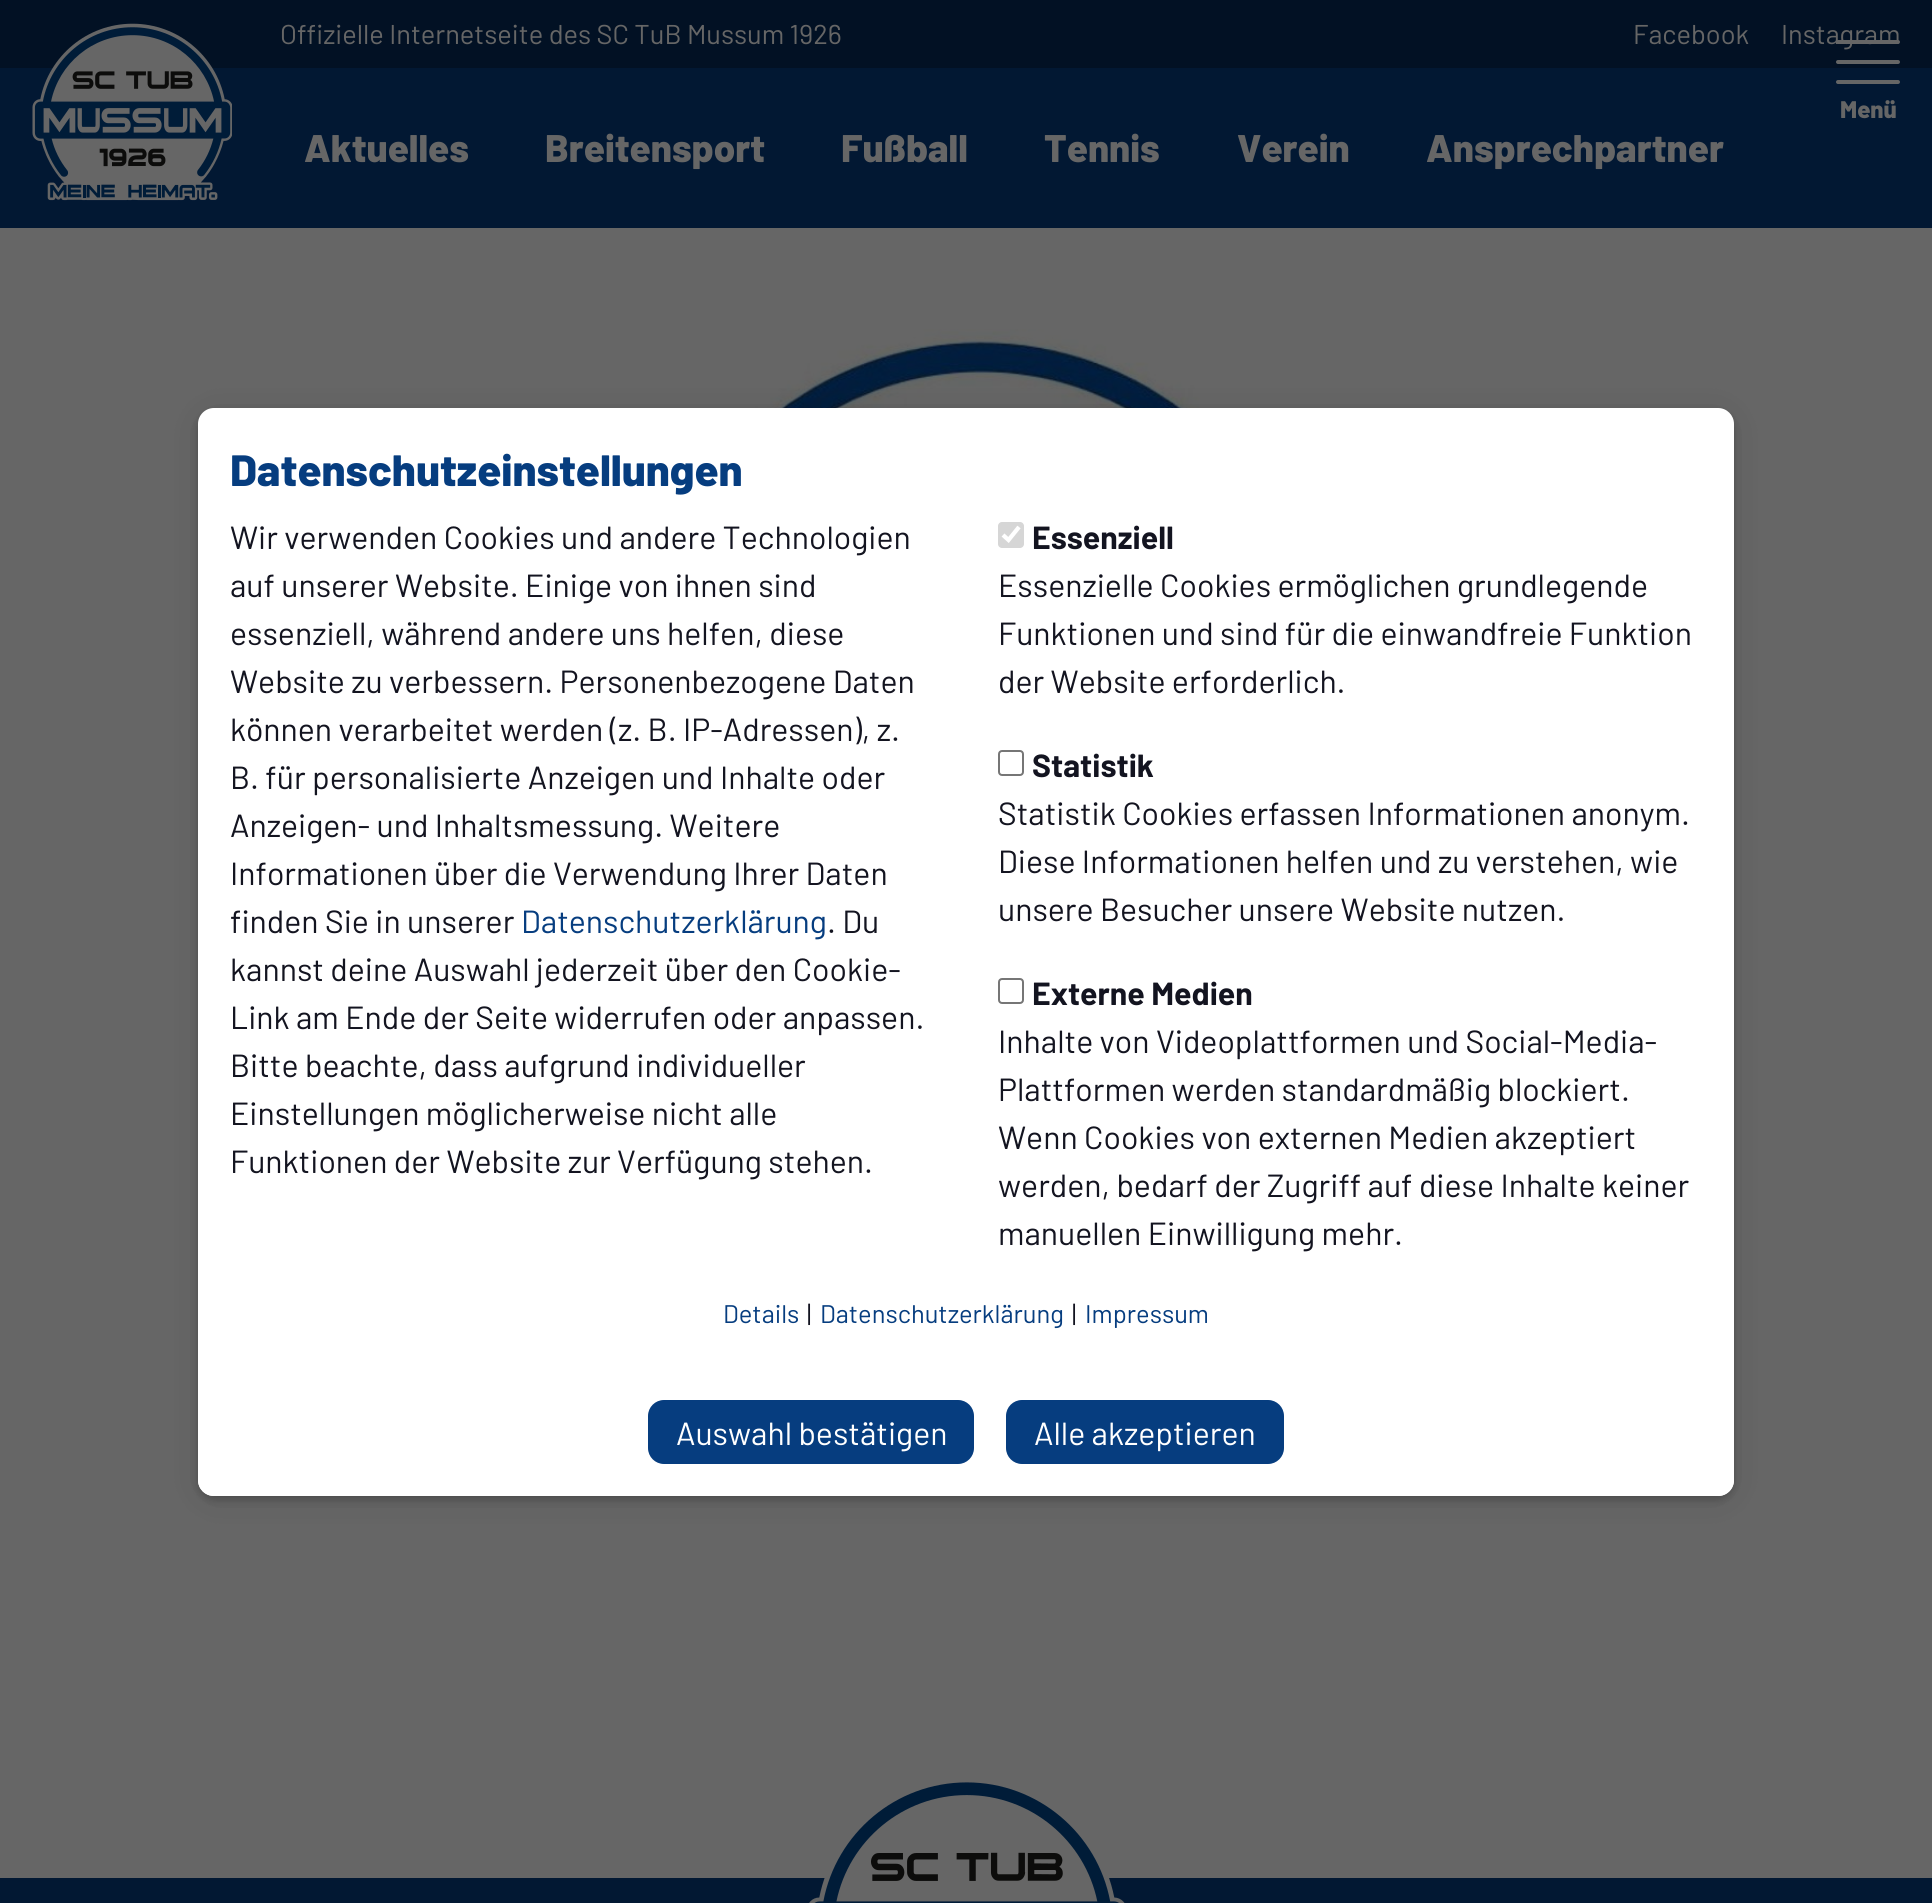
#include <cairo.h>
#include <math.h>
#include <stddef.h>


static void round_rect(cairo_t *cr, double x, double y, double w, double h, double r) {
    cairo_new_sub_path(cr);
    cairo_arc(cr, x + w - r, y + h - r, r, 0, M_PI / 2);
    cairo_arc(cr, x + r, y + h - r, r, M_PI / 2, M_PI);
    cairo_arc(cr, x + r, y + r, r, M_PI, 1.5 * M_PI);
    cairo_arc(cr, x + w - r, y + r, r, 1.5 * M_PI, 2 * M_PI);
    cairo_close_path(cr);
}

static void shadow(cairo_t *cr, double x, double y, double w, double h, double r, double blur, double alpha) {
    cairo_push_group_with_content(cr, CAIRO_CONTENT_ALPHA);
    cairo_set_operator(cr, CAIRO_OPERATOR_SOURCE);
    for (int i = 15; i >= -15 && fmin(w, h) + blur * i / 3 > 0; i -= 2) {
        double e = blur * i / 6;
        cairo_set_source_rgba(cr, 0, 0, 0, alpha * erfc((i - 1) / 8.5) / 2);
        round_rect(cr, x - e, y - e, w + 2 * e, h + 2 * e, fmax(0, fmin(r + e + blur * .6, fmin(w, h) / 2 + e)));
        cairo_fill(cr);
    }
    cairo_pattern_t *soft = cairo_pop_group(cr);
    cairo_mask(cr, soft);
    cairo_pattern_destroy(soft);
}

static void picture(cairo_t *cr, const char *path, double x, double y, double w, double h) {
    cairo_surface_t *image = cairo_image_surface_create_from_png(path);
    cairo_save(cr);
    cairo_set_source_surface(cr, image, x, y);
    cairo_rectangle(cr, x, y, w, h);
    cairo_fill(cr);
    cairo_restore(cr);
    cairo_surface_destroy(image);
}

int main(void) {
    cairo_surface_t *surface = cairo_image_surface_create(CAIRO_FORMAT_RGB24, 1932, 1903);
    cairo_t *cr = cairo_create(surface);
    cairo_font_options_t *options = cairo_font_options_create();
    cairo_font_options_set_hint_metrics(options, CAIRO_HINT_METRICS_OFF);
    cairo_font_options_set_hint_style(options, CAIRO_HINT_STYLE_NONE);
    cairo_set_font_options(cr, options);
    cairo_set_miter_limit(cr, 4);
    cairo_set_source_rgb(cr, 0.4, 0.4, 0.4);
    cairo_paint(cr);
    cairo_set_source_rgb(cr, 0.008, 0.067, 0.141);
    cairo_rectangle(cr, 0, 0, 1932, 68);
    cairo_fill(cr);
    cairo_select_font_face(cr, "Barlow", CAIRO_FONT_SLANT_NORMAL, CAIRO_FONT_WEIGHT_NORMAL);
    cairo_set_font_size(cr, 27.2);
    cairo_set_source_rgb(cr, 0.4, 0.4, 0.4);
    cairo_move_to(cr, 280, 44);
    cairo_show_text(cr, "Offizielle Internetseite des SC TuB Mussum 1926");
    cairo_move_to(cr, 1633, 44);
    cairo_show_text(cr, "Facebook");
    cairo_move_to(cr, 1781, 44);
    cairo_show_text(cr, "Instagram");
    cairo_set_source_rgb(cr, 0.008, 0.094, 0.2);
    cairo_rectangle(cr, 0, 68, 1932, 160);
    cairo_fill(cr);
    picture(cr, "img1.png", 32, 23, 200, 178);
    cairo_select_font_face(cr, "Barlow ExtraBold", CAIRO_FONT_SLANT_NORMAL, CAIRO_FONT_WEIGHT_NORMAL);
    cairo_set_font_size(cr, 38.5);
    cairo_set_source_rgb(cr, 0.4, 0.4, 0.4);
    cairo_move_to(cr, 304, 162);
    cairo_show_text(cr, "Aktuelles");
    cairo_move_to(cr, 545, 162);
    cairo_show_text(cr, "Breitensport");
    cairo_move_to(cr, 841, 162);
    cairo_show_text(cr, "Fußball");
    cairo_move_to(cr, 1044, 162);
    cairo_show_text(cr, "Tennis");
    cairo_move_to(cr, 1237, 162);
    cairo_show_text(cr, "Verein");
    cairo_move_to(cr, 1426, 162);
    cairo_show_text(cr, "Ansprechpartner");
    round_rect(cr, 1836, 60, 64, 4, 2);
    cairo_fill(cr);
    round_rect(cr, 1836, 40, 64, 4, 2);
    cairo_fill(cr);
    round_rect(cr, 1836, 80, 64, 4, 2);
    cairo_fill(cr);
    cairo_set_font_size(cr, 24);
    cairo_move_to(cr, 1840, 118);
    cairo_show_text(cr, "Menü");
    picture(cr, "img2.png", 609, 329, 744, 79);
    cairo_set_source_rgb(cr, 0.008, 0.094, 0.2);
    cairo_rectangle(cr, 0, 1878, 1932, 25);
    cairo_fill(cr);
    picture(cr, "img3.png", 809, 1782, 316, 121);
    cairo_set_source_rgb(cr, 0, 0, 0);
    shadow(cr, 198, 412, 1536, 1088, 16, 16, 0.1);
    shadow(cr, 198, 412, 1536, 1088, 16, 4, 0.2);
    cairo_set_source_rgb(cr, 1, 1, 1);
    round_rect(cr, 198, 408, 1536, 1088, 16);
    cairo_fill(cr);
    cairo_set_font_size(cr, 43.8);
    cairo_set_source_rgb(cr, 0.024, 0.239, 0.498);
    cairo_move_to(cr, 230, 486);
    cairo_show_text(cr, "Datenschutzeinstellungen");
    cairo_select_font_face(cr, "Barlow", CAIRO_FONT_SLANT_NORMAL, CAIRO_FONT_WEIGHT_NORMAL);
    cairo_set_font_size(cr, 32);
    cairo_set_source_rgb(cr, 0.078, 0.082, 0.125);
    cairo_move_to(cr, 230, 549);
    cairo_show_text(cr, "Wir verwenden Cookies und andere Technologien");
    cairo_move_to(cr, 230, 597);
    cairo_show_text(cr, "auf unserer Website. Einige von ihnen sind");
    cairo_move_to(cr, 230, 645);
    cairo_show_text(cr, "essenziell, während andere uns helfen, diese");
    cairo_move_to(cr, 230, 693);
    cairo_show_text(cr, "Website zu verbessern. Personenbezogene Daten");
    cairo_move_to(cr, 230, 741);
    cairo_show_text(cr, "können verarbeitet werden (z. B. IP-Adressen), z.");
    cairo_move_to(cr, 230, 789);
    cairo_show_text(cr, "B. für personalisierte Anzeigen und Inhalte oder");
    cairo_move_to(cr, 230, 837);
    cairo_show_text(cr, "Anzeigen- und Inhaltsmessung. Weitere");
    cairo_move_to(cr, 230, 885);
    cairo_show_text(cr, "Informationen über die Verwendung Ihrer Daten");
    cairo_move_to(cr, 230, 933);
    cairo_show_text(cr, "finden Sie in unserer");
    cairo_set_source_rgb(cr, 0.024, 0.239, 0.498);
    cairo_move_to(cr, 521, 933);
    cairo_show_text(cr, "Datenschutzerklärung");
    cairo_set_source_rgb(cr, 0.078, 0.082, 0.125);
    cairo_move_to(cr, 827, 933);
    cairo_show_text(cr, ". Du");
    cairo_move_to(cr, 230, 981);
    cairo_show_text(cr, "kannst deine Auswahl jederzeit über den Cookie-");
    cairo_move_to(cr, 230, 1029);
    cairo_show_text(cr, "Link am Ende der Seite widerrufen oder anpassen.");
    cairo_move_to(cr, 230, 1077);
    cairo_show_text(cr, "Bitte beachte, dass aufgrund individueller");
    cairo_move_to(cr, 230, 1125);
    cairo_show_text(cr, "Einstellungen möglicherweise nicht alle");
    cairo_move_to(cr, 230, 1173);
    cairo_show_text(cr, "Funktionen der Website zur Verfügung stehen.");
    cairo_set_source_rgb(cr, 0.839, 0.839, 0.839);
    round_rect(cr, 998, 522, 26, 26, 4);
    cairo_fill(cr);
    cairo_new_path(cr);
    cairo_move_to(cr, 1003, 535);
    cairo_line_to(cr, 1008.5, 540);
    cairo_line_to(cr, 1019, 527);
    cairo_set_source_rgb(cr, 1, 1, 1);
    cairo_set_line_width(cr, 4.2);
    cairo_stroke(cr);
    cairo_select_font_face(cr, "Barlow", CAIRO_FONT_SLANT_NORMAL, CAIRO_FONT_WEIGHT_BOLD);
    cairo_set_source_rgb(cr, 0.078, 0.082, 0.125);
    cairo_move_to(cr, 1032, 549);
    cairo_show_text(cr, "Essenziell");
    cairo_select_font_face(cr, "Barlow", CAIRO_FONT_SLANT_NORMAL, CAIRO_FONT_WEIGHT_NORMAL);
    cairo_move_to(cr, 998, 597);
    cairo_show_text(cr, "Essenzielle Cookies ermöglichen grundlegende");
    cairo_move_to(cr, 998, 645);
    cairo_show_text(cr, "Funktionen und sind für die einwandfreie Funktion");
    cairo_move_to(cr, 998, 693);
    cairo_show_text(cr, "der Website erforderlich.");
    round_rect(cr, 999, 751, 24, 24, 3);
    cairo_set_source_rgb(cr, 0.463, 0.463, 0.463);
    cairo_set_line_width(cr, 2);
    cairo_stroke(cr);
    cairo_select_font_face(cr, "Barlow", CAIRO_FONT_SLANT_NORMAL, CAIRO_FONT_WEIGHT_BOLD);
    cairo_set_source_rgb(cr, 0.078, 0.082, 0.125);
    cairo_move_to(cr, 1032, 777);
    cairo_show_text(cr, "Statistik");
    cairo_select_font_face(cr, "Barlow", CAIRO_FONT_SLANT_NORMAL, CAIRO_FONT_WEIGHT_NORMAL);
    cairo_move_to(cr, 998, 825);
    cairo_show_text(cr, "Statistik Cookies erfassen Informationen anonym.");
    cairo_move_to(cr, 998, 873);
    cairo_show_text(cr, "Diese Informationen helfen und zu verstehen, wie");
    cairo_move_to(cr, 998, 921);
    cairo_show_text(cr, "unsere Besucher unsere Website nutzen.");
    round_rect(cr, 999, 979, 24, 24, 3);
    cairo_set_source_rgb(cr, 0.463, 0.463, 0.463);
    cairo_stroke(cr);
    cairo_select_font_face(cr, "Barlow", CAIRO_FONT_SLANT_NORMAL, CAIRO_FONT_WEIGHT_BOLD);
    cairo_set_source_rgb(cr, 0.078, 0.082, 0.125);
    cairo_move_to(cr, 1032, 1005);
    cairo_show_text(cr, "Externe Medien");
    cairo_select_font_face(cr, "Barlow", CAIRO_FONT_SLANT_NORMAL, CAIRO_FONT_WEIGHT_NORMAL);
    cairo_move_to(cr, 998, 1053);
    cairo_show_text(cr, "Inhalte von Videoplattformen und Social-Media-");
    cairo_move_to(cr, 998, 1101);
    cairo_show_text(cr, "Plattformen werden standardmäßig blockiert.");
    cairo_move_to(cr, 998, 1149);
    cairo_show_text(cr, "Wenn Cookies von externen Medien akzeptiert");
    cairo_move_to(cr, 998, 1197);
    cairo_show_text(cr, "werden, bedarf der Zugriff auf diese Inhalte keiner");
    cairo_move_to(cr, 998, 1245);
    cairo_show_text(cr, "manuellen Einwilligung mehr.");
    cairo_set_font_size(cr, 25.5);
    cairo_set_source_rgb(cr, 0.024, 0.239, 0.498);
    cairo_move_to(cr, 723, 1323);
    cairo_show_text(cr, "Details");
    cairo_set_source_rgb(cr, 0.078, 0.082, 0.125);
    cairo_move_to(cr, 807, 1323);
    cairo_show_text(cr, "|");
    cairo_set_source_rgb(cr, 0.024, 0.239, 0.498);
    cairo_move_to(cr, 820, 1323);
    cairo_show_text(cr, "Datenschutzerklärung");
    cairo_set_source_rgb(cr, 0.078, 0.082, 0.125);
    cairo_move_to(cr, 1072, 1323);
    cairo_show_text(cr, "|");
    cairo_set_source_rgb(cr, 0.024, 0.239, 0.498);
    cairo_move_to(cr, 1085, 1323);
    cairo_show_text(cr, "Impressum");
    cairo_set_source_rgb(cr, 1, 1, 1);
    cairo_new_path(cr);
    cairo_move_to(cr, 198, 1368);
    cairo_line_to(cr, 1734, 1368);
    cairo_line_to(cr, 1734, 1480);
    cairo_curve_to(cr, 1734, 1489, 1727, 1496, 1718, 1496);
    cairo_line_to(cr, 214, 1496);
    cairo_curve_to(cr, 205, 1496, 198, 1489, 198, 1480);
    cairo_close_path(cr);
    cairo_fill(cr);
    cairo_set_source_rgb(cr, 0.024, 0.239, 0.498);
    round_rect(cr, 649, 1401, 324, 62, 15);
    cairo_fill_preserve(cr);
    cairo_stroke(cr);
    cairo_set_font_size(cr, 32);
    cairo_set_source_rgb(cr, 1, 1, 1);
    cairo_move_to(cr, 676, 1445);
    cairo_show_text(cr, "Auswahl bestätigen");
    cairo_set_source_rgb(cr, 0.024, 0.239, 0.498);
    round_rect(cr, 1007, 1401, 276, 62, 15);
    cairo_fill_preserve(cr);
    cairo_stroke(cr);
    cairo_set_source_rgb(cr, 1, 1, 1);
    cairo_move_to(cr, 1034, 1445);
    cairo_show_text(cr, "Alle akzeptieren");
    cairo_surface_write_to_png(surface, "page.png");
    cairo_font_options_destroy(options);
    cairo_destroy(cr);
    cairo_surface_destroy(surface);
    return 0;
}
